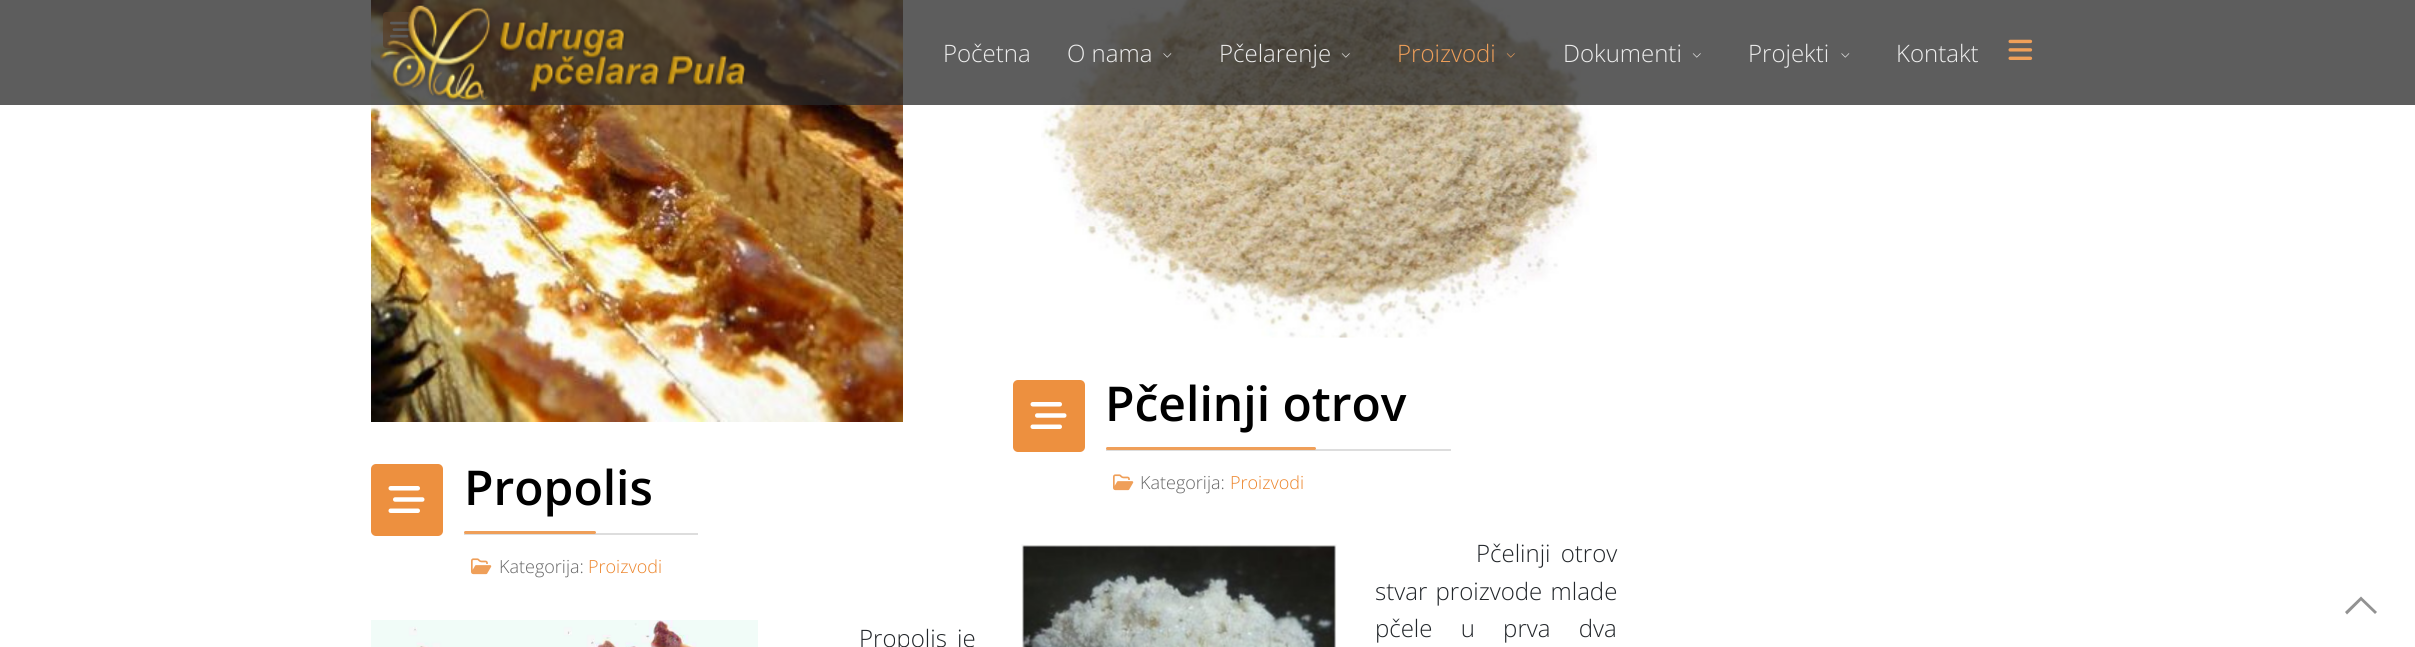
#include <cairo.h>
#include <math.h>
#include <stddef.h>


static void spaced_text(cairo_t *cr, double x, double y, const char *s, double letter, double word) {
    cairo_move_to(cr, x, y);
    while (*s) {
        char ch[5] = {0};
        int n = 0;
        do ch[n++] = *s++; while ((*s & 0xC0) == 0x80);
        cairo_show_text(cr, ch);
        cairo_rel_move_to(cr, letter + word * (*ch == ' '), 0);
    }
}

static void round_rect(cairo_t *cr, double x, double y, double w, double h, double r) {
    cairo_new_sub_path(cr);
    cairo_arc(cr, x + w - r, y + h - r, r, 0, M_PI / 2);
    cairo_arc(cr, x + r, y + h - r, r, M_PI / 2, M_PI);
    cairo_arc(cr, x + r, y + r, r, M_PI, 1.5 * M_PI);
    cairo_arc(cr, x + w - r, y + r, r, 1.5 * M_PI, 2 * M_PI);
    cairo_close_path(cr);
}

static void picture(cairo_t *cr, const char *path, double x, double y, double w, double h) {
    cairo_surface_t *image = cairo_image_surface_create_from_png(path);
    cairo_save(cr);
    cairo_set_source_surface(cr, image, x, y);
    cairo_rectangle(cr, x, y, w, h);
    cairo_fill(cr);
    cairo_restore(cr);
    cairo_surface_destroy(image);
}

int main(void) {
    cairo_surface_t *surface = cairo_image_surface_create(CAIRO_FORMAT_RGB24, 2415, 647);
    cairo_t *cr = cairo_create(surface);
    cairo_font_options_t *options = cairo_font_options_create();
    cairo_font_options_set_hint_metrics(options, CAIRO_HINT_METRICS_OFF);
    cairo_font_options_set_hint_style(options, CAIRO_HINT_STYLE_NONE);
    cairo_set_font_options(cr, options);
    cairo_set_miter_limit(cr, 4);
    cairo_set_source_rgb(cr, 1, 1, 1);
    cairo_paint(cr);
    picture(cr, "img8.png", 371, 0, 532, 422);
    cairo_set_source_rgba(cr, 0.922, 0.518, 0.165, 0.7);
    round_rect(cr, 383, 12, 36, 36, 3);
    cairo_fill(cr);
    picture(cr, "img9.png", 390, 21, 20, 17);
    picture(cr, "img13.png", 1041, 0, 556, 338);
    cairo_set_source_rgba(cr, 0.153, 0.153, 0.153, 0.75);
    cairo_rectangle(cr, 0, 0, 2415, 105);
    cairo_fill(cr);
    picture(cr, "img1.png", 380, 4, 366, 98);
    cairo_select_font_face(cr, "Open Sans Light", CAIRO_FONT_SLANT_NORMAL, CAIRO_FONT_WEIGHT_NORMAL);
    cairo_set_font_size(cr, 24);
    cairo_set_source_rgb(cr, 0.929, 0.929, 0.929);
    cairo_move_to(cr, 943, 62);
    cairo_show_text(cr, "Početna");
    cairo_move_to(cr, 1067, 62);
    cairo_show_text(cr, "O nama");
    picture(cr, "img2.png", 1163, 53, 9, 5);
    cairo_move_to(cr, 1219, 62);
    cairo_show_text(cr, "Pčelarenje");
    picture(cr, "img3.png", 1341, 53, 9, 5);
    cairo_set_source_rgb(cr, 0.937, 0.624, 0.349);
    cairo_move_to(cr, 1397, 62);
    cairo_show_text(cr, "Proizvodi");
    picture(cr, "img4.png", 1506, 53, 9, 5);
    cairo_set_source_rgb(cr, 0.929, 0.929, 0.929);
    cairo_move_to(cr, 1563, 62);
    cairo_show_text(cr, "Dokumenti");
    picture(cr, "img5.png", 1692, 53, 9, 5);
    cairo_move_to(cr, 1748, 62);
    cairo_show_text(cr, "Projekti");
    picture(cr, "img6.png", 1841, 53, 9, 5);
    cairo_move_to(cr, 1896, 62);
    cairo_show_text(cr, "Kontakt");
    picture(cr, "img7.png", 2008, 39, 25, 21);
    cairo_set_source_rgb(cr, 0.929, 0.565, 0.247);
    round_rect(cr, 371, 464, 72, 72, 5);
    cairo_fill(cr);
    picture(cr, "img10.png", 388, 486, 37, 27);
    cairo_set_source_rgb(cr, 0.867, 0.867, 0.867);
    cairo_rectangle(cr, 464, 533, 234, 2);
    cairo_fill(cr);
    cairo_select_font_face(cr, "Open Sans SemiBold", CAIRO_FONT_SLANT_NORMAL, CAIRO_FONT_WEIGHT_NORMAL);
    cairo_set_font_size(cr, 48);
    cairo_set_source_rgb(cr, 0, 0, 0);
    cairo_move_to(cr, 464, 505);
    cairo_show_text(cr, "Propolis");
    cairo_set_source_rgb(cr, 0.937, 0.624, 0.349);
    round_rect(cr, 464, 531, 132, 3, 1.5);
    cairo_fill(cr);
    picture(cr, "img11.png", 471, 558, 21, 17);
    cairo_select_font_face(cr, "Open Sans Light", CAIRO_FONT_SLANT_NORMAL, CAIRO_FONT_WEIGHT_NORMAL);
    cairo_set_font_size(cr, 18);
    cairo_set_source_rgb(cr, 0.4, 0.4, 0.4);
    cairo_move_to(cr, 499, 573);
    cairo_show_text(cr, "Kategorija:");
    cairo_set_source_rgb(cr, 0.922, 0.518, 0.165);
    cairo_move_to(cr, 588, 573);
    cairo_show_text(cr, "Proizvodi");
    picture(cr, "img12.png", 371, 620, 387, 27);
    cairo_set_font_size(cr, 24);
    cairo_set_source_rgb(cr, 0.129, 0.145, 0.161);
    spaced_text(cr, 859, 647, "Propolis je", 0, 4);
    cairo_set_source_rgb(cr, 0.929, 0.565, 0.247);
    round_rect(cr, 1013, 380, 72, 72, 5);
    cairo_fill(cr);
    picture(cr, "img10.png", 1030, 402, 37, 27);
    cairo_set_source_rgb(cr, 0.867, 0.867, 0.867);
    cairo_rectangle(cr, 1106, 449, 345, 2);
    cairo_fill(cr);
    cairo_select_font_face(cr, "Open Sans SemiBold", CAIRO_FONT_SLANT_NORMAL, CAIRO_FONT_WEIGHT_NORMAL);
    cairo_set_font_size(cr, 48);
    cairo_set_source_rgb(cr, 0, 0, 0);
    cairo_move_to(cr, 1105, 421);
    cairo_show_text(cr, "Pčelinji otrov");
    cairo_set_source_rgb(cr, 0.937, 0.624, 0.349);
    round_rect(cr, 1106, 447, 210, 3, 1.5);
    cairo_fill(cr);
    picture(cr, "img11.png", 1113, 474, 21, 17);
    cairo_select_font_face(cr, "Open Sans Light", CAIRO_FONT_SLANT_NORMAL, CAIRO_FONT_WEIGHT_NORMAL);
    cairo_set_font_size(cr, 18);
    cairo_set_source_rgb(cr, 0.4, 0.4, 0.4);
    cairo_move_to(cr, 1140, 489);
    cairo_show_text(cr, "Kategorija:");
    cairo_set_source_rgb(cr, 0.922, 0.518, 0.165);
    cairo_move_to(cr, 1230, 489);
    cairo_show_text(cr, "Proizvodi");
    picture(cr, "img14.png", 1021, 544, 316, 103);
    cairo_set_font_size(cr, 24);
    cairo_set_source_rgb(cr, 0.129, 0.145, 0.161);
    spaced_text(cr, 1476, 562, "Pčelinji otrov", 0, 4);
    spaced_text(cr, 1375, 600, "stvar proizvode mlade", 0, 2);
    spaced_text(cr, 1375, 637, "pčele u prva dva", 0, 22);
    cairo_set_source_rgb(cr, 0.573, 0.573, 0.573);
    cairo_new_path(cr);
    cairo_move_to(cr, 2363, 598.5);
    cairo_line_to(cr, 2361, 596.5);
    cairo_line_to(cr, 2345, 612);
    cairo_line_to(cr, 2347, 614.5);
    cairo_line_to(cr, 2361, 600.5);
    cairo_line_to(cr, 2375, 614);
    cairo_line_to(cr, 2377, 612);
    cairo_close_path(cr);
    cairo_fill(cr);
    cairo_surface_write_to_png(surface, "page.png");
    cairo_font_options_destroy(options);
    cairo_destroy(cr);
    cairo_surface_destroy(surface);
    return 0;
}
